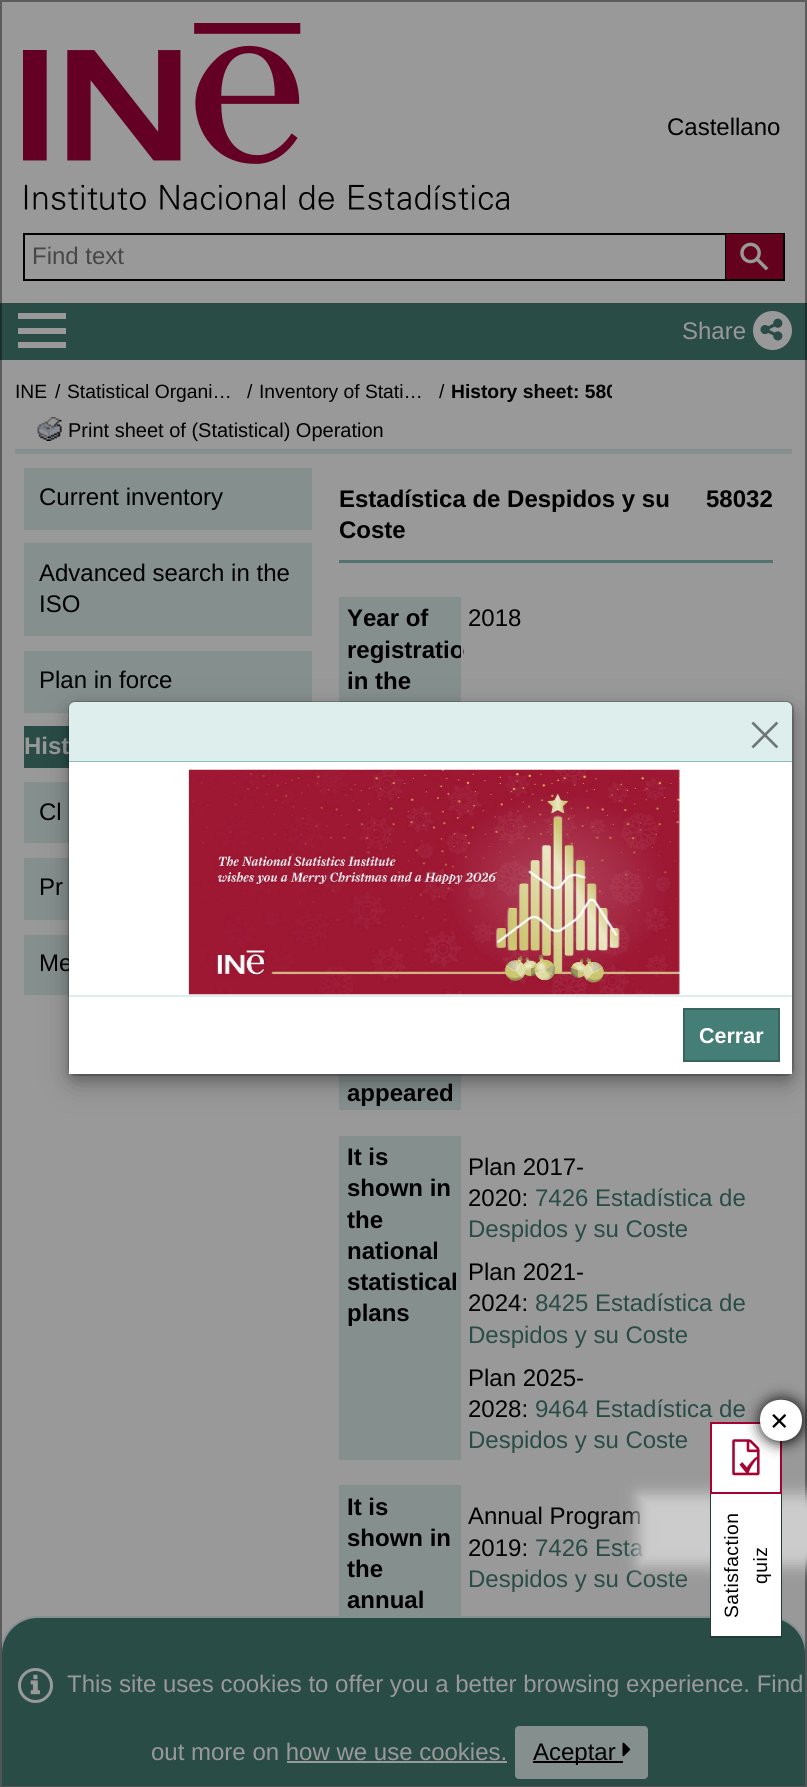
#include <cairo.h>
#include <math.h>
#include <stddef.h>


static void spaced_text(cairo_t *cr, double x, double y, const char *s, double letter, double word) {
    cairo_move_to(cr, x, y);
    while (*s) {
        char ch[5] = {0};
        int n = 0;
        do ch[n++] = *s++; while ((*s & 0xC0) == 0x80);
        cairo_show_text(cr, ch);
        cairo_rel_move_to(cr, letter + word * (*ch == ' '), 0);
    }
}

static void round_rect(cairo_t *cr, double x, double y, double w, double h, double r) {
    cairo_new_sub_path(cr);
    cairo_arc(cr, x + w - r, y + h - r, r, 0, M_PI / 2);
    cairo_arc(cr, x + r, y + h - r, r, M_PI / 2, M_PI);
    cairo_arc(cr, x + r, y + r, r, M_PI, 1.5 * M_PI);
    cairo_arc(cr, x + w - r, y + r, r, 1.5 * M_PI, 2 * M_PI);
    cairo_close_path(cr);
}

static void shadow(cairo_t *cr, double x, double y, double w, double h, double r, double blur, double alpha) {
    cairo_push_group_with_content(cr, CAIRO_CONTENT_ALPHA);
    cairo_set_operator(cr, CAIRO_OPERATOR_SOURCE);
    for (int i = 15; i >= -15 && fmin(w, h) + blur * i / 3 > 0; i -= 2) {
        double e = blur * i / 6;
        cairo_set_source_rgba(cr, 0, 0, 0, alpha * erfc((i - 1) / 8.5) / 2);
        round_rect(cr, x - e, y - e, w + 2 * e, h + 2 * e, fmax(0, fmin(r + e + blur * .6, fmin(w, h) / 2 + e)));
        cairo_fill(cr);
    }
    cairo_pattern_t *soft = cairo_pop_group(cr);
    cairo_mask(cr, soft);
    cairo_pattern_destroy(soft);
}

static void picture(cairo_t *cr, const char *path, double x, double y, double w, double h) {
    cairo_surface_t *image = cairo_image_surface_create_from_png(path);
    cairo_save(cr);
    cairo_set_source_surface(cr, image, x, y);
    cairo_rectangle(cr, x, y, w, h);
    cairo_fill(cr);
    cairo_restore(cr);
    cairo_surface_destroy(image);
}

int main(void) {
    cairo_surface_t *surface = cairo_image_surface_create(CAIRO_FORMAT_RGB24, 807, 1787);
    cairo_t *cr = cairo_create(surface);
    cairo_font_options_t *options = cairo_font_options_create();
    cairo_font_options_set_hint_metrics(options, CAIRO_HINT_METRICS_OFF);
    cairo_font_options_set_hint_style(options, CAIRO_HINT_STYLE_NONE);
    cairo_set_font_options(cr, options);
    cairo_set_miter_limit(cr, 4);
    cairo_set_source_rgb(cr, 0.6, 0.6, 0.6);
    cairo_paint(cr);
    picture(cr, "img1.png", 23, 23, 487, 187);
    cairo_select_font_face(cr, "Liberation Sans", CAIRO_FONT_SLANT_NORMAL, CAIRO_FONT_WEIGHT_NORMAL);
    cairo_set_font_size(cr, 24);
    cairo_set_source_rgb(cr, 0, 0, 0);
    cairo_move_to(cr, 667, 135);
    cairo_show_text(cr, "Castellano");
    cairo_rectangle(cr, 24, 234, 707, 46);
    cairo_stroke(cr);
    cairo_set_source_rgb(cr, 0.278, 0.278, 0.278);
    cairo_move_to(cr, 32, 264);
    cairo_show_text(cr, "Find text");
    cairo_rectangle(cr, 726, 234, 58, 46);
    cairo_set_source_rgb(cr, 0, 0, 0);
    cairo_stroke(cr);
    cairo_set_source_rgb(cr, 0.392, 0.008, 0.118);
    cairo_rectangle(cr, 726, 234, 57, 45);
    cairo_fill(cr);
    picture(cr, "img2.png", 740, 242, 29, 29);
    cairo_set_source_rgb(cr, 0.161, 0.298, 0.278);
    cairo_rectangle(cr, 0, 303, 807, 57);
    cairo_fill(cr);
    cairo_set_source_rgb(cr, 0.6, 0.6, 0.6);
    cairo_new_path(cr);
    cairo_move_to(cr, 66, 318);
    cairo_line_to(cr, 66, 313);
    cairo_line_to(cr, 18, 313);
    cairo_line_to(cr, 18, 319);
    cairo_line_to(cr, 66, 319);
    cairo_close_path(cr);
    cairo_move_to(cr, 66, 333);
    cairo_line_to(cr, 66, 328);
    cairo_line_to(cr, 18, 328);
    cairo_line_to(cr, 18, 334);
    cairo_line_to(cr, 66, 334);
    cairo_close_path(cr);
    cairo_move_to(cr, 66, 347);
    cairo_line_to(cr, 66, 342);
    cairo_line_to(cr, 18, 342);
    cairo_line_to(cr, 18, 348);
    cairo_line_to(cr, 66, 348);
    cairo_close_path(cr);
    cairo_fill(cr);
    cairo_move_to(cr, 682, 339);
    cairo_show_text(cr, "Share");
    cairo_new_path(cr);
    cairo_arc(cr, 772.5, 330.5, 19.5, 0, 2 * M_PI);
    cairo_fill(cr);
    picture(cr, "img3.png", 760, 318, 23, 23);
    cairo_set_source_rgb(cr, 0.522, 0.561, 0.557);
    cairo_rectangle(cr, 15, 449, 777, 5);
    cairo_fill(cr);
    cairo_set_font_size(cr, 19.25);
    cairo_set_source_rgb(cr, 0, 0, 0);
    cairo_move_to(cr, 15, 398);
    cairo_show_text(cr, "INE");
    cairo_move_to(cr, 55, 398);
    cairo_show_text(cr, "/");
    cairo_move_to(cr, 67, 398);
    cairo_show_text(cr, "Statistical Organi…");
    cairo_move_to(cr, 247, 398);
    cairo_show_text(cr, "/");
    cairo_move_to(cr, 259, 398);
    cairo_show_text(cr, "Inventory of Stati…");
    cairo_move_to(cr, 439, 398);
    cairo_show_text(cr, "/");
    cairo_save(cr);
    cairo_rectangle(cr, 431, 380, 181, 25);
    cairo_clip(cr);
    cairo_select_font_face(cr, "Liberation Sans", CAIRO_FONT_SLANT_NORMAL, CAIRO_FONT_WEIGHT_BOLD);
    cairo_move_to(cr, 451, 398);
    cairo_show_text(cr, "History sheet: 580");
    cairo_restore(cr);
    picture(cr, "img4.png", 37, 417, 25, 24);
    cairo_set_font_size(cr, 20);
    cairo_move_to(cr, 68, 437);
    cairo_show_text(cr, "Print sheet of (Statistical) Operation");
    cairo_set_source_rgb(cr, 0.522, 0.561, 0.557);
    cairo_rectangle(cr, 24, 468, 288, 62);
    cairo_fill(cr);
    cairo_set_font_size(cr, 24);
    cairo_set_source_rgb(cr, 0, 0, 0);
    cairo_move_to(cr, 39, 505);
    cairo_show_text(cr, "Current inventory");
    cairo_set_source_rgb(cr, 0.522, 0.561, 0.557);
    cairo_rectangle(cr, 24, 543, 288, 93);
    cairo_fill(cr);
    cairo_set_source_rgb(cr, 0, 0, 0);
    cairo_move_to(cr, 39, 581);
    cairo_show_text(cr, "Advanced search in the");
    cairo_move_to(cr, 39, 612);
    cairo_show_text(cr, "ISO");
    cairo_set_source_rgb(cr, 0.522, 0.561, 0.557);
    cairo_rectangle(cr, 24, 651, 288, 62);
    cairo_fill(cr);
    cairo_set_source_rgb(cr, 0, 0, 0);
    cairo_move_to(cr, 39, 688);
    cairo_show_text(cr, "Plan in force");
    cairo_set_source_rgb(cr, 0.161, 0.298, 0.278);
    cairo_rectangle(cr, 24, 726, 45, 42);
    cairo_fill(cr);
    cairo_select_font_face(cr, "Liberation Sans", CAIRO_FONT_SLANT_NORMAL, CAIRO_FONT_WEIGHT_BOLD);
    cairo_set_source_rgb(cr, 0.6, 0.6, 0.6);
    cairo_move_to(cr, 24, 754);
    cairo_show_text(cr, "Hist");
    cairo_set_source_rgb(cr, 0.522, 0.561, 0.557);
    cairo_rectangle(cr, 24, 782, 45, 61);
    cairo_fill(cr);
    cairo_select_font_face(cr, "Liberation Sans", CAIRO_FONT_SLANT_NORMAL, CAIRO_FONT_WEIGHT_NORMAL);
    cairo_set_source_rgb(cr, 0, 0, 0);
    cairo_move_to(cr, 39, 820);
    cairo_show_text(cr, "Cl");
    cairo_set_source_rgb(cr, 0.522, 0.561, 0.557);
    cairo_rectangle(cr, 24, 858, 45, 62);
    cairo_fill(cr);
    cairo_set_source_rgb(cr, 0, 0, 0);
    cairo_move_to(cr, 39, 895);
    cairo_show_text(cr, "Pr");
    cairo_set_source_rgb(cr, 0.522, 0.561, 0.557);
    cairo_rectangle(cr, 24, 935, 45, 60);
    cairo_fill(cr);
    cairo_set_source_rgb(cr, 0, 0, 0);
    cairo_move_to(cr, 39, 971);
    cairo_show_text(cr, "Me");
    cairo_select_font_face(cr, "Liberation Sans", CAIRO_FONT_SLANT_NORMAL, CAIRO_FONT_WEIGHT_BOLD);
    cairo_move_to(cr, 339, 507);
    cairo_show_text(cr, "Estadística de Despidos y su");
    cairo_move_to(cr, 706, 507);
    cairo_show_text(cr, "58032");
    cairo_move_to(cr, 339, 538);
    cairo_show_text(cr, "Coste");
    cairo_set_source_rgb(cr, 0.322, 0.447, 0.439);
    cairo_rectangle(cr, 339, 560, 434, 3);
    cairo_fill(cr);
    cairo_set_source_rgb(cr, 0.522, 0.561, 0.557);
    cairo_rectangle(cr, 339, 597, 122, 105);
    cairo_fill(cr);
    cairo_set_source_rgb(cr, 0, 0, 0);
    cairo_move_to(cr, 347, 626);
    cairo_show_text(cr, "Year of");
    cairo_move_to(cr, 347, 658);
    cairo_show_text(cr, "registratio");
    cairo_move_to(cr, 347, 689);
    cairo_show_text(cr, "in the");
    cairo_set_source_rgb(cr, 0.6, 0.6, 0.6);
    cairo_rectangle(cr, 461, 646, 2, 11);
    cairo_fill(cr);
    cairo_select_font_face(cr, "Liberation Sans", CAIRO_FONT_SLANT_NORMAL, CAIRO_FONT_WEIGHT_NORMAL);
    cairo_set_source_rgb(cr, 0, 0, 0);
    cairo_move_to(cr, 468, 626);
    cairo_show_text(cr, "2018");
    cairo_set_source_rgb(cr, 0.522, 0.561, 0.557);
    cairo_rectangle(cr, 339, 1074, 122, 36);
    cairo_fill(cr);
    cairo_select_font_face(cr, "Liberation Sans", CAIRO_FONT_SLANT_NORMAL, CAIRO_FONT_WEIGHT_BOLD);
    cairo_set_source_rgb(cr, 0, 0, 0);
    cairo_move_to(cr, 347, 1101);
    cairo_show_text(cr, "appeared");
    cairo_set_source_rgb(cr, 0.522, 0.561, 0.557);
    cairo_rectangle(cr, 339, 1136, 122, 324);
    cairo_fill(cr);
    cairo_set_source_rgb(cr, 0, 0, 0);
    cairo_move_to(cr, 347, 1165);
    cairo_show_text(cr, "It is");
    cairo_move_to(cr, 347, 1196);
    cairo_show_text(cr, "shown in");
    cairo_move_to(cr, 347, 1228);
    cairo_show_text(cr, "the");
    cairo_move_to(cr, 347, 1259);
    cairo_show_text(cr, "national");
    cairo_move_to(cr, 347, 1290);
    cairo_show_text(cr, "statistical");
    cairo_move_to(cr, 347, 1321);
    cairo_show_text(cr, "plans");
    cairo_select_font_face(cr, "Liberation Sans", CAIRO_FONT_SLANT_NORMAL, CAIRO_FONT_WEIGHT_NORMAL);
    cairo_move_to(cr, 468, 1175);
    cairo_show_text(cr, "Plan 2017-");
    cairo_move_to(cr, 468, 1206);
    cairo_show_text(cr, "2020:");
    cairo_set_source_rgb(cr, 0.161, 0.298, 0.278);
    cairo_move_to(cr, 535, 1206);
    cairo_show_text(cr, "7426 Estadística de");
    cairo_move_to(cr, 468, 1237);
    cairo_show_text(cr, "Despidos y su Coste");
    cairo_set_source_rgb(cr, 0, 0, 0);
    cairo_move_to(cr, 468, 1280);
    cairo_show_text(cr, "Plan 2021-");
    cairo_move_to(cr, 468, 1311);
    cairo_show_text(cr, "2024:");
    cairo_set_source_rgb(cr, 0.161, 0.298, 0.278);
    cairo_move_to(cr, 535, 1311);
    cairo_show_text(cr, "8425 Estadística de");
    cairo_move_to(cr, 468, 1343);
    cairo_show_text(cr, "Despidos y su Coste");
    cairo_set_source_rgb(cr, 0, 0, 0);
    cairo_move_to(cr, 468, 1386);
    cairo_show_text(cr, "Plan 2025-");
    cairo_move_to(cr, 468, 1417);
    cairo_show_text(cr, "2028:");
    cairo_set_source_rgb(cr, 0.161, 0.298, 0.278);
    cairo_move_to(cr, 535, 1417);
    cairo_show_text(cr, "9464 Estadística de");
    cairo_move_to(cr, 468, 1448);
    cairo_show_text(cr, "Despidos y su Coste");
    cairo_set_source_rgb(cr, 0.522, 0.561, 0.557);
    cairo_rectangle(cr, 339, 1485, 122, 131);
    cairo_fill(cr);
    cairo_select_font_face(cr, "Liberation Sans", CAIRO_FONT_SLANT_NORMAL, CAIRO_FONT_WEIGHT_BOLD);
    cairo_set_source_rgb(cr, 0, 0, 0);
    cairo_move_to(cr, 347, 1515);
    cairo_show_text(cr, "It is");
    cairo_move_to(cr, 347, 1546);
    cairo_show_text(cr, "shown in");
    cairo_move_to(cr, 347, 1577);
    cairo_show_text(cr, "the");
    cairo_move_to(cr, 347, 1608);
    cairo_show_text(cr, "annual");
    cairo_select_font_face(cr, "Liberation Sans", CAIRO_FONT_SLANT_NORMAL, CAIRO_FONT_WEIGHT_NORMAL);
    cairo_move_to(cr, 468, 1524);
    cairo_show_text(cr, "Annual Program");
    cairo_move_to(cr, 468, 1556);
    cairo_show_text(cr, "2019:");
    cairo_set_source_rgb(cr, 0.161, 0.298, 0.278);
    cairo_move_to(cr, 535, 1556);
    cairo_show_text(cr, "7426 Esta");
    cairo_move_to(cr, 468, 1587);
    cairo_show_text(cr, "Despidos y su Coste");
    cairo_new_path(cr);
    cairo_move_to(cr, 38, 1617);
    cairo_line_to(cr, 769, 1617);
    cairo_curve_to(cr, 789.5, 1617, 806, 1633.5, 806, 1654);
    cairo_line_to(cr, 806, 1787);
    cairo_line_to(cr, 1, 1787);
    cairo_line_to(cr, 1, 1654);
    cairo_curve_to(cr, 1, 1633.5, 17.5, 1617, 38, 1617);
    cairo_close_path(cr);
    cairo_fill_preserve(cr);
    cairo_set_source_rgb(cr, 0.522, 0.561, 0.557);
    cairo_stroke(cr);
    cairo_arc(cr, 35.5, 1685.5, 16, 0, 2 * M_PI);
    cairo_set_source_rgb(cr, 0.6, 0.6, 0.6);
    cairo_set_line_width(cr, 3);
    cairo_stroke(cr);
    picture(cr, "img9.png", 30, 1674, 10, 21);
    cairo_set_source_rgb(cr, 0.522, 0.561, 0.557);
    round_rect(cr, 514, 1725, 135, 55, 5);
    cairo_fill_preserve(cr);
    cairo_set_source_rgb(cr, 0.161, 0.298, 0.278);
    cairo_set_line_width(cr, 2);
    cairo_stroke(cr);
    cairo_set_source_rgb(cr, 0, 0, 0);
    cairo_rectangle(cr, 533, 1761, 90, 2);
    cairo_fill(cr);
    picture(cr, "img10.png", 622, 1742, 9, 15);
    cairo_set_source_rgb(cr, 0.6, 0.6, 0.6);
    cairo_rectangle(cr, 287, 1761, 220, 2);
    cairo_fill(cr);
    cairo_rectangle(cr, 1, 1, 805, 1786);
    cairo_set_source_rgba(cr, 0, 0, 0, 0.4);
    cairo_stroke(cr);
    cairo_set_source_rgb(cr, 0, 0, 0);
    shadow(cr, 68, 710, 726, 375, 8, 15, 0.19);
    shadow(cr, 68, 707, 726, 375, 8, 6, 0.2);
    round_rect(cr, 69, 702, 724, 373, 7);
    cairo_set_source_rgba(cr, 0, 0, 0, 0.2);
    cairo_stroke(cr);
    cairo_set_source_rgb(cr, 0.867, 0.933, 0.925);
    cairo_new_path(cr);
    cairo_move_to(cr, 75, 702);
    cairo_line_to(cr, 786, 702);
    cairo_curve_to(cr, 789.5, 702, 792, 704.5, 792, 708);
    cairo_line_to(cr, 792, 762);
    cairo_line_to(cr, 69, 762);
    cairo_line_to(cr, 69, 708);
    cairo_curve_to(cr, 69, 704.5, 71.5, 702, 75, 702);
    cairo_close_path(cr);
    cairo_fill(cr);
    cairo_set_source_rgb(cr, 0.537, 0.745, 0.729);
    cairo_rectangle(cr, 69, 761, 723, 1);
    cairo_fill(cr);
    picture(cr, "img5.png", 751, 721, 28, 28);
    cairo_set_source_rgb(cr, 1, 1, 1);
    cairo_rectangle(cr, 69, 762, 723, 233);
    cairo_fill(cr);
    picture(cr, "img6.png", 188, 769, 492, 226);
    cairo_rectangle(cr, 69, 997, 723, 77);
    cairo_fill(cr);
    cairo_set_source_rgb(cr, 0.867, 0.933, 0.925);
    cairo_rectangle(cr, 69, 995, 723, 2);
    cairo_fill(cr);
    cairo_set_source_rgb(cr, 0.271, 0.494, 0.463);
    cairo_rectangle(cr, 684, 1009, 95, 52);
    cairo_fill_preserve(cr);
    cairo_set_source_rgb(cr, 0.216, 0.396, 0.369);
    cairo_stroke(cr);
    cairo_select_font_face(cr, "Liberation Sans", CAIRO_FONT_SLANT_NORMAL, CAIRO_FONT_WEIGHT_BOLD);
    cairo_set_font_size(cr, 21.5);
    cairo_set_source_rgb(cr, 1, 1, 1);
    cairo_move_to(cr, 699, 1043);
    cairo_show_text(cr, "Cerrar");
    cairo_set_source_rgb(cr, 0.8, 0.8, 0.8);
    shadow(cr, 638, 1494, 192, 72, 0, 7.5, 1);
    cairo_set_source_rgb(cr, 1, 1, 1);
    cairo_rectangle(cr, 712, 1424, 68, 68);
    cairo_fill(cr);
    picture(cr, "img8.png", 739, 1456, 19, 17);
    cairo_rectangle(cr, 711, 1423, 70, 70);
    cairo_set_source_rgb(cr, 0.655, 0.012, 0.196);
    cairo_stroke(cr);
    picture(cr, "img7.png", 732, 1439, 28, 37);
    cairo_set_source_rgb(cr, 0, 0, 0);
    shadow(cr, 761, 1400, 42, 42, 21, 7.5, 1);
    cairo_set_source_rgb(cr, 1, 1, 1);
    cairo_new_path(cr);
    cairo_move_to(cr, 760, 1420);
    cairo_curve_to(cr, 760, 1393, 802, 1393, 802, 1420);
    cairo_curve_to(cr, 802, 1448, 760, 1448, 760, 1420);
    cairo_close_path(cr);
    cairo_fill(cr);
    cairo_select_font_face(cr, "DejaVu Sans", CAIRO_FONT_SLANT_NORMAL, CAIRO_FONT_WEIGHT_NORMAL);
    cairo_set_font_size(cr, 24);
    cairo_set_source_rgb(cr, 0, 0, 0);
    cairo_save(cr);
    cairo_translate(cr, 788, 1431);
    cairo_rotate(cr, -90 * M_PI / 180);
    cairo_move_to(cr, 0, 0);
    cairo_show_text(cr, "✕");
    cairo_restore(cr);
    cairo_set_source_rgb(cr, 1, 1, 1);
    cairo_rectangle(cr, 711, 1494, 70, 142);
    cairo_fill(cr);
    cairo_set_source_rgb(cr, 0.125, 0.235, 0.216);
    cairo_rectangle(cr, 710, 1494, 1, 144);
    cairo_fill(cr);
    cairo_rectangle(cr, 781, 1494, 1, 144);
    cairo_fill(cr);
    cairo_rectangle(cr, 710, 1636, 72, 2);
    cairo_fill(cr);
    cairo_select_font_face(cr, "Liberation Sans", CAIRO_FONT_SLANT_NORMAL, CAIRO_FONT_WEIGHT_NORMAL);
    cairo_set_font_size(cr, 19.25);
    cairo_set_source_rgb(cr, 0, 0, 0);
    cairo_save(cr);
    cairo_translate(cr, 738, 1618);
    cairo_rotate(cr, -90 * M_PI / 180);
    spaced_text(cr, 0, 0, "Satisfaction", 0.5, 0);
    cairo_restore(cr);
    cairo_save(cr);
    cairo_translate(cr, 767, 1584);
    cairo_rotate(cr, -90 * M_PI / 180);
    spaced_text(cr, 0, 0, "quiz", 0.5, 0);
    cairo_restore(cr);
    cairo_set_font_size(cr, 24);
    cairo_set_source_rgb(cr, 0.6, 0.6, 0.6);
    cairo_move_to(cr, 67, 1692);
    cairo_show_text(cr, "This site uses cookies to offer you a better browsing experience. Find");
    cairo_move_to(cr, 151, 1760);
    cairo_show_text(cr, "out more on how we use cookies.");
    cairo_set_source_rgb(cr, 0, 0, 0);
    cairo_move_to(cr, 533, 1760);
    cairo_show_text(cr, "Aceptar");
    cairo_surface_write_to_png(surface, "page.png");
    cairo_font_options_destroy(options);
    cairo_destroy(cr);
    cairo_surface_destroy(surface);
    return 0;
}
